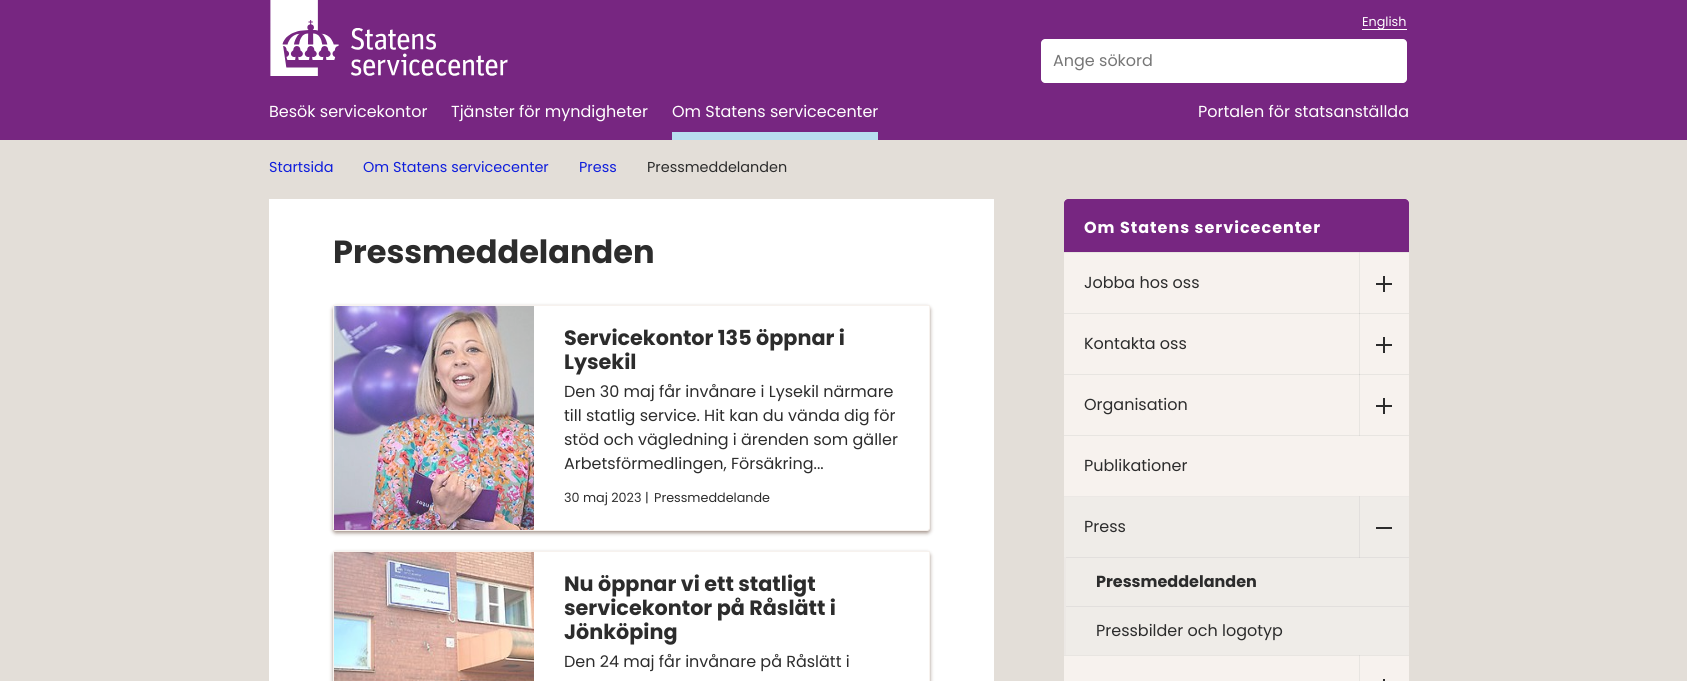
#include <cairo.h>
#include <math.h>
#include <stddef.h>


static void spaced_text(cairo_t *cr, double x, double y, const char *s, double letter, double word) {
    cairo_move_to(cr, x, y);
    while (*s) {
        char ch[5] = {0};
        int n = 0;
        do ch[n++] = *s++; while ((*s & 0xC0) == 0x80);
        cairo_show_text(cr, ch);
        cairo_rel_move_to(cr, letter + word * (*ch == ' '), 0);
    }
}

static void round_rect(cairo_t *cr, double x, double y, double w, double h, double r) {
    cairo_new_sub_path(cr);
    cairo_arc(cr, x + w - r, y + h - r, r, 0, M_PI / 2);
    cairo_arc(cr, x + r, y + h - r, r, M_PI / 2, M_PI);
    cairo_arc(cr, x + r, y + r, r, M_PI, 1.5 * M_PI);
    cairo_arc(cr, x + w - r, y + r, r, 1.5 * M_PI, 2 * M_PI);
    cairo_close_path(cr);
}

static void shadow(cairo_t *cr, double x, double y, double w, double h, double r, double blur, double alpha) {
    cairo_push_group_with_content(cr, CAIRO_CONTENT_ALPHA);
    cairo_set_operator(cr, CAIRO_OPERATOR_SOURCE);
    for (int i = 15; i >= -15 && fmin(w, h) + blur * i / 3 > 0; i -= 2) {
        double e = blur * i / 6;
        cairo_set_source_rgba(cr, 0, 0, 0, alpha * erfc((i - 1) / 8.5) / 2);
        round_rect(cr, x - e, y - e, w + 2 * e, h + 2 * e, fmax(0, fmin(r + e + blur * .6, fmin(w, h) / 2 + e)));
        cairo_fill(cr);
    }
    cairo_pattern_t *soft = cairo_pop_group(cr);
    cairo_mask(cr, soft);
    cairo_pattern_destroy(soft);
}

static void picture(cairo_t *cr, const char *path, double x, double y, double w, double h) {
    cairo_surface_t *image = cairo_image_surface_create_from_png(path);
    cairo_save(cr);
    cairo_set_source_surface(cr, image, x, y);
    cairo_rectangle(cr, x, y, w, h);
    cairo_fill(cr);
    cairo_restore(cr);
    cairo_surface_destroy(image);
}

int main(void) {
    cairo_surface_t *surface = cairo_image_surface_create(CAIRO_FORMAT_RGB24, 1687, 681);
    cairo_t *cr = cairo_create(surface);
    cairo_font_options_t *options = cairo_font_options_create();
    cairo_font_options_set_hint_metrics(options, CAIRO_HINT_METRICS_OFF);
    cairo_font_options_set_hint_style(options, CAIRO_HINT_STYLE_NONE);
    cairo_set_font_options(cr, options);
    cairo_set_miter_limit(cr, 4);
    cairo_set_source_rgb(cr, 0.89, 0.871, 0.847);
    cairo_paint(cr);
    cairo_set_source_rgb(cr, 0.467, 0.149, 0.506);
    cairo_rectangle(cr, 0, 0, 1687, 140);
    cairo_fill(cr);
    picture(cr, "img1.png", 270, 0, 238, 76);
    cairo_set_source_rgb(cr, 1, 1, 1);
    cairo_rectangle(cr, 1362, 29, 45, 1);
    cairo_fill(cr);
    cairo_select_font_face(cr, "Poppins", CAIRO_FONT_SLANT_NORMAL, CAIRO_FONT_WEIGHT_NORMAL);
    cairo_set_font_size(cr, 12.75);
    cairo_move_to(cr, 1362, 26);
    cairo_show_text(cr, "English");
    cairo_new_path(cr);
    cairo_move_to(cr, 1045, 39);
    cairo_line_to(cr, 1346, 39);
    cairo_line_to(cr, 1346, 83);
    cairo_line_to(cr, 1045, 83);
    cairo_curve_to(cr, 1043, 83, 1041, 81, 1041, 79);
    cairo_line_to(cr, 1041, 43);
    cairo_curve_to(cr, 1041, 41, 1043, 39, 1045, 39);
    cairo_close_path(cr);
    cairo_fill(cr);
    cairo_set_font_size(cr, 16);
    cairo_set_source_rgb(cr, 0.463, 0.463, 0.463);
    cairo_move_to(cr, 1053, 66);
    cairo_show_text(cr, "Ange sökord");
    cairo_set_source_rgb(cr, 1, 1, 1);
    cairo_new_path(cr);
    cairo_move_to(cr, 1345, 39);
    cairo_line_to(cr, 1403, 39);
    cairo_curve_to(cr, 1405, 39, 1407, 41, 1407, 43);
    cairo_line_to(cr, 1407, 79);
    cairo_curve_to(cr, 1407, 81, 1405, 83, 1403, 83);
    cairo_line_to(cr, 1345, 83);
    cairo_close_path(cr);
    cairo_fill(cr);
    cairo_move_to(cr, 269, 117);
    cairo_show_text(cr, "Besök servicekontor");
    cairo_move_to(cr, 451, 117);
    cairo_show_text(cr, "Tjänster för myndigheter");
    cairo_set_source_rgb(cr, 0.722, 0.871, 0.937);
    cairo_rectangle(cr, 672, 132, 206, 8);
    cairo_fill(cr);
    cairo_set_source_rgb(cr, 1, 1, 1);
    cairo_move_to(cr, 672, 117);
    cairo_show_text(cr, "Om Statens servicecenter");
    cairo_move_to(cr, 1198, 117);
    cairo_show_text(cr, "Portalen för statsanställda");
    cairo_set_font_size(cr, 14.4);
    cairo_set_source_rgb(cr, 0.059, 0.118, 0.863);
    cairo_move_to(cr, 269, 172);
    cairo_show_text(cr, "Startsida");
    cairo_move_to(cr, 363, 172);
    cairo_show_text(cr, "Om Statens servicecenter");
    cairo_move_to(cr, 579, 172);
    cairo_show_text(cr, "Press");
    cairo_set_source_rgb(cr, 0.173, 0.173, 0.173);
    cairo_move_to(cr, 647, 172);
    cairo_show_text(cr, "Pressmeddelanden");
    cairo_set_source_rgb(cr, 1, 1, 1);
    cairo_rectangle(cr, 269, 199, 725, 482);
    cairo_fill(cr);
    cairo_select_font_face(cr, "Poppins", CAIRO_FONT_SLANT_NORMAL, CAIRO_FONT_WEIGHT_BOLD);
    cairo_set_font_size(cr, 32);
    cairo_set_source_rgb(cr, 0.173, 0.173, 0.173);
    cairo_move_to(cr, 333, 263);
    cairo_show_text(cr, "Pressmeddelanden");
    cairo_set_source_rgb(cr, 0.639, 0.58, 0.545);
    shadow(cr, 333, 307, 597, 226, 3, 2, 1);
    cairo_set_source_rgb(cr, 1, 1, 1);
    cairo_new_path(cr);
    cairo_move_to(cr, 333.5, 305.5);
    cairo_line_to(cr, 929.5, 305.5);
    cairo_line_to(cr, 929.5, 528);
    cairo_curve_to(cr, 929.5, 529.5, 928.5, 530.5, 927, 530.5);
    cairo_line_to(cr, 336, 530.5);
    cairo_curve_to(cr, 334.5, 530.5, 333.5, 529.5, 333.5, 528);
    cairo_close_path(cr);
    cairo_fill_preserve(cr);
    cairo_set_source_rgb(cr, 0.965, 0.949, 0.933);
    cairo_set_line_width(cr, 1);
    cairo_stroke(cr);
    picture(cr, "img2.png", 334, 306, 200, 224);
    cairo_set_font_size(cr, 20.75);
    cairo_set_source_rgb(cr, 0.173, 0.173, 0.173);
    cairo_move_to(cr, 564, 345);
    cairo_show_text(cr, "Servicekontor 135 öppnar i");
    cairo_move_to(cr, 564, 369);
    cairo_show_text(cr, "Lysekil");
    cairo_select_font_face(cr, "Poppins", CAIRO_FONT_SLANT_NORMAL, CAIRO_FONT_WEIGHT_NORMAL);
    cairo_set_font_size(cr, 16);
    cairo_move_to(cr, 564, 397);
    cairo_show_text(cr, "Den 30 maj får invånare i Lysekil närmare");
    cairo_move_to(cr, 564, 421);
    cairo_show_text(cr, "till statlig service. Hit kan du vända dig för");
    cairo_move_to(cr, 564, 445);
    cairo_show_text(cr, "stöd och vägledning i ärenden som gäller");
    cairo_move_to(cr, 564, 469);
    cairo_show_text(cr, "Arbetsförmedlingen, Försäkring...");
    cairo_set_font_size(cr, 12.75);
    cairo_move_to(cr, 564, 502);
    cairo_show_text(cr, "30 maj 2023");
    cairo_move_to(cr, 645, 502);
    cairo_show_text(cr, "|");
    cairo_move_to(cr, 654, 502);
    cairo_show_text(cr, "Pressmeddelande");
    cairo_save(cr);
    cairo_set_fill_rule(cr, CAIRO_FILL_RULE_EVEN_ODD);
    cairo_new_path(cr);
    cairo_move_to(cr, 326, 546);
    cairo_line_to(cr, 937, 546);
    cairo_line_to(cr, 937, 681);
    cairo_line_to(cr, 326, 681);
    cairo_close_path(cr);
    cairo_move_to(cr, 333, 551);
    cairo_line_to(cr, 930, 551);
    cairo_line_to(cr, 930, 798);
    cairo_curve_to(cr, 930, 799.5, 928.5, 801, 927, 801);
    cairo_line_to(cr, 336, 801);
    cairo_curve_to(cr, 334.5, 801, 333, 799.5, 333, 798);
    cairo_close_path(cr);
    cairo_clip(cr);
    cairo_set_source_rgb(cr, 0.639, 0.58, 0.545);
    shadow(cr, 333, 553, 597, 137, 3, 2, 1);
    cairo_restore(cr);
    cairo_rectangle(cr, 333.5, 551.5, 596, 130);
    cairo_set_source_rgb(cr, 0.965, 0.949, 0.933);
    cairo_stroke(cr);
    picture(cr, "img3.png", 334, 552, 200, 129);
    cairo_select_font_face(cr, "Poppins", CAIRO_FONT_SLANT_NORMAL, CAIRO_FONT_WEIGHT_BOLD);
    cairo_set_font_size(cr, 20.75);
    cairo_set_source_rgb(cr, 0.173, 0.173, 0.173);
    cairo_move_to(cr, 564, 591);
    cairo_show_text(cr, "Nu öppnar vi ett statligt");
    cairo_move_to(cr, 564, 615);
    cairo_show_text(cr, "servicekontor på Råslätt i");
    cairo_move_to(cr, 564, 639);
    cairo_show_text(cr, "Jönköping");
    cairo_select_font_face(cr, "Poppins", CAIRO_FONT_SLANT_NORMAL, CAIRO_FONT_WEIGHT_NORMAL);
    cairo_set_font_size(cr, 16);
    cairo_move_to(cr, 564, 667);
    cairo_show_text(cr, "Den 24 maj får invånare på Råslätt i");
    cairo_set_source_rgb(cr, 0.965, 0.949, 0.933);
    round_rect(cr, 1064, 199, 345, 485, 3);
    cairo_fill(cr);
    cairo_set_source_rgb(cr, 0.91, 0.898, 0.882);
    cairo_rectangle(cr, 1359, 655, 1, 26);
    cairo_fill(cr);
    cairo_rectangle(cr, 1064, 435, 345, 1);
    cairo_fill(cr);
    cairo_rectangle(cr, 1359, 374, 1, 62);
    cairo_fill(cr);
    cairo_set_source_rgb(cr, 0.867, 0.855, 0.843);
    cairo_rectangle(cr, 1359, 435, 1, 1);
    cairo_fill(cr);
    cairo_set_source_rgb(cr, 0.91, 0.898, 0.882);
    cairo_rectangle(cr, 1064, 374, 345, 1);
    cairo_fill(cr);
    cairo_rectangle(cr, 1359, 313, 1, 62);
    cairo_fill(cr);
    cairo_set_source_rgb(cr, 0.831, 0.82, 0.812);
    cairo_rectangle(cr, 1359, 374, 1, 1);
    cairo_fill(cr);
    cairo_set_source_rgb(cr, 0.91, 0.898, 0.882);
    cairo_rectangle(cr, 1064, 313, 345, 1);
    cairo_fill(cr);
    cairo_rectangle(cr, 1359, 252, 1, 62);
    cairo_fill(cr);
    cairo_set_source_rgb(cr, 0.831, 0.82, 0.812);
    cairo_rectangle(cr, 1359, 313, 1, 1);
    cairo_fill(cr);
    cairo_set_source_rgb(cr, 0.467, 0.149, 0.506);
    cairo_new_path(cr);
    cairo_move_to(cr, 1068, 199);
    cairo_line_to(cr, 1405, 199);
    cairo_curve_to(cr, 1407, 199, 1409, 201, 1409, 203);
    cairo_line_to(cr, 1409, 252);
    cairo_line_to(cr, 1064, 252);
    cairo_line_to(cr, 1064, 203);
    cairo_curve_to(cr, 1064, 201, 1066, 199, 1068, 199);
    cairo_close_path(cr);
    cairo_fill(cr);
    cairo_select_font_face(cr, "Poppins", CAIRO_FONT_SLANT_NORMAL, CAIRO_FONT_WEIGHT_BOLD);
    cairo_set_source_rgb(cr, 1, 1, 1);
    spaced_text(cr, 1084, 233, "Om Statens servicecenter", 1, 0);
    cairo_set_source_rgb(cr, 0.91, 0.898, 0.882);
    cairo_rectangle(cr, 1064, 252, 345, 1);
    cairo_fill(cr);
    cairo_set_source_rgb(cr, 0.867, 0.855, 0.843);
    cairo_rectangle(cr, 1359, 252, 1, 1);
    cairo_fill(cr);
    cairo_select_font_face(cr, "Poppins", CAIRO_FONT_SLANT_NORMAL, CAIRO_FONT_WEIGHT_NORMAL);
    cairo_set_source_rgb(cr, 0.173, 0.173, 0.173);
    cairo_move_to(cr, 1084, 288);
    cairo_show_text(cr, "Jobba hos oss");
    cairo_rectangle(cr, 1376, 283, 16, 2);
    cairo_fill(cr);
    cairo_rectangle(cr, 1383, 276, 2, 16);
    cairo_fill(cr);
    cairo_move_to(cr, 1084, 349);
    cairo_show_text(cr, "Kontakta oss");
    cairo_rectangle(cr, 1376, 344, 16, 2);
    cairo_fill(cr);
    cairo_rectangle(cr, 1383, 337, 2, 16);
    cairo_fill(cr);
    cairo_move_to(cr, 1084, 410);
    cairo_show_text(cr, "Organisation");
    cairo_rectangle(cr, 1376, 405, 16, 2);
    cairo_fill(cr);
    cairo_rectangle(cr, 1383, 398, 2, 16);
    cairo_fill(cr);
    cairo_move_to(cr, 1084, 471);
    cairo_show_text(cr, "Publikationer");
    cairo_set_source_rgb(cr, 0.937, 0.922, 0.91);
    cairo_rectangle(cr, 1064, 497, 345, 60);
    cairo_fill(cr);
    cairo_set_source_rgb(cr, 0.886, 0.875, 0.867);
    cairo_rectangle(cr, 1359, 496, 1, 61);
    cairo_fill(cr);
    cairo_set_source_rgb(cr, 0.925, 0.91, 0.898);
    cairo_rectangle(cr, 1064, 496, 345, 1);
    cairo_fill(cr);
    cairo_set_source_rgb(cr, 0.878, 0.867, 0.855);
    cairo_rectangle(cr, 1359, 496, 1, 1);
    cairo_fill(cr);
    cairo_set_source_rgb(cr, 0.173, 0.173, 0.173);
    cairo_move_to(cr, 1084, 532);
    cairo_show_text(cr, "Press");
    cairo_rectangle(cr, 1376, 527, 16, 2);
    cairo_fill(cr);
    cairo_set_source_rgb(cr, 0.937, 0.922, 0.91);
    cairo_rectangle(cr, 1066, 558, 343, 97);
    cairo_fill(cr);
    cairo_set_source_rgb(cr, 0.886, 0.875, 0.867);
    cairo_rectangle(cr, 1066, 557, 343, 1);
    cairo_fill(cr);
    cairo_set_source_rgb(cr, 0.847, 0.835, 0.831);
    cairo_rectangle(cr, 1359, 557, 1, 1);
    cairo_fill(cr);
    cairo_set_source_rgb(cr, 0.925, 0.91, 0.898);
    cairo_rectangle(cr, 1064, 557, 2, 98);
    cairo_fill(cr);
    cairo_select_font_face(cr, "Poppins", CAIRO_FONT_SLANT_NORMAL, CAIRO_FONT_WEIGHT_BOLD);
    cairo_set_source_rgb(cr, 0.173, 0.173, 0.173);
    cairo_move_to(cr, 1096, 587);
    cairo_show_text(cr, "Pressmeddelanden");
    cairo_set_source_rgb(cr, 0.886, 0.875, 0.867);
    cairo_rectangle(cr, 1066, 606, 343, 1);
    cairo_fill(cr);
    cairo_select_font_face(cr, "Poppins", CAIRO_FONT_SLANT_NORMAL, CAIRO_FONT_WEIGHT_NORMAL);
    cairo_set_source_rgb(cr, 0.173, 0.173, 0.173);
    cairo_move_to(cr, 1096, 636);
    cairo_show_text(cr, "Pressbilder och logotyp");
    cairo_set_source_rgb(cr, 0.91, 0.898, 0.882);
    cairo_rectangle(cr, 1064, 655, 345, 1);
    cairo_fill(cr);
    cairo_set_source_rgb(cr, 0.867, 0.855, 0.843);
    cairo_rectangle(cr, 1359, 655, 1, 1);
    cairo_fill(cr);
    cairo_set_source_rgb(cr, 0.173, 0.173, 0.173);
    cairo_rectangle(cr, 1383, 679, 2, 2);
    cairo_fill(cr);
    cairo_surface_write_to_png(surface, "page.png");
    cairo_font_options_destroy(options);
    cairo_destroy(cr);
    cairo_surface_destroy(surface);
    return 0;
}
